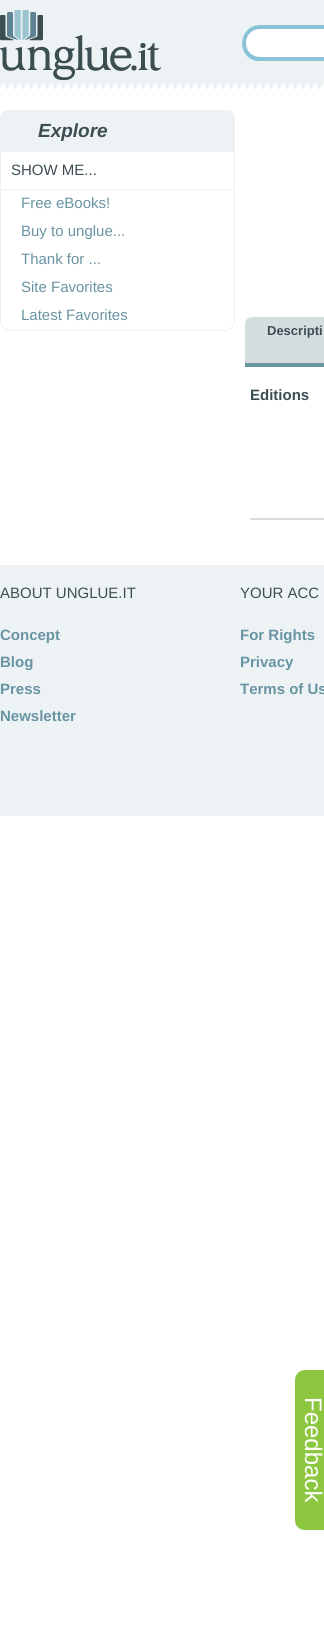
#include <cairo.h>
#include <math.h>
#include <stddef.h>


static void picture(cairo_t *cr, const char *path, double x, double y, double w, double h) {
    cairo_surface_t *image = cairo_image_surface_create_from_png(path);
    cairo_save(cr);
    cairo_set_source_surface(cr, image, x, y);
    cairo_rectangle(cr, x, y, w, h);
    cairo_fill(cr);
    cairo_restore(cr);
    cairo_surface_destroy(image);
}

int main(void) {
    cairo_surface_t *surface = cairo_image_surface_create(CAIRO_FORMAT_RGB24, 324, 1629);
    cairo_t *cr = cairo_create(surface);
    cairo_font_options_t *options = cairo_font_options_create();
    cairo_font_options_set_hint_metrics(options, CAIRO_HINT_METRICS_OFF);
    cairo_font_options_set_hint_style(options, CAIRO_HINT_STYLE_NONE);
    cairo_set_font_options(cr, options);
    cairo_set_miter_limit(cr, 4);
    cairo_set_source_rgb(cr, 1, 1, 1);
    cairo_paint(cr);
    picture(cr, "img1.png", 0, 0, 324, 90);
    picture(cr, "img2.png", 0, 10, 161, 70);
    cairo_set_source_rgb(cr, 1, 1, 1);
    cairo_new_path(cr);
    cairo_move_to(cr, 260, 25);
    cairo_line_to(cr, 324, 25);
    cairo_line_to(cr, 324, 61);
    cairo_line_to(cr, 260, 61);
    cairo_curve_to(cr, 250, 61, 242, 53, 242, 43);
    cairo_curve_to(cr, 242, 33, 250, 25, 260, 25);
    cairo_close_path(cr);
    cairo_fill(cr);
    cairo_set_source_rgb(cr, 0.541, 0.765, 0.843);
    cairo_set_fill_rule(cr, CAIRO_FILL_RULE_EVEN_ODD);
    cairo_new_path(cr);
    cairo_move_to(cr, 260, 25);
    cairo_line_to(cr, 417, 25);
    cairo_line_to(cr, 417, 61);
    cairo_line_to(cr, 256, 61);
    cairo_curve_to(cr, 235, 56, 239, 25, 260, 25);
    cairo_close_path(cr);
    cairo_move_to(cr, 260, 29);
    cairo_line_to(cr, 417, 29);
    cairo_line_to(cr, 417, 57);
    cairo_line_to(cr, 260, 57);
    cairo_curve_to(cr, 252, 57, 246, 51, 246, 43);
    cairo_curve_to(cr, 246, 35, 252, 29, 260, 29);
    cairo_close_path(cr);
    cairo_fill(cr);
    cairo_set_source_rgb(cr, 0.929, 0.953, 0.957);
    cairo_new_path(cr);
    cairo_move_to(cr, 8, 110);
    cairo_line_to(cr, 227, 110);
    cairo_curve_to(cr, 231.5, 110, 235, 113.5, 235, 118);
    cairo_line_to(cr, 235, 150);
    cairo_line_to(cr, 0, 150);
    cairo_line_to(cr, 0, 118);
    cairo_curve_to(cr, 0, 113.5, 3.5, 110, 8, 110);
    cairo_close_path(cr);
    cairo_fill(cr);
    cairo_select_font_face(cr, "Liberation Sans", CAIRO_FONT_SLANT_ITALIC, CAIRO_FONT_WEIGHT_BOLD);
    cairo_set_font_size(cr, 19);
    cairo_set_source_rgb(cr, 0.239, 0.306, 0.325);
    cairo_move_to(cr, 38, 137);
    cairo_show_text(cr, "Explore");
    cairo_new_path(cr);
    cairo_move_to(cr, 0.5, 150.5);
    cairo_line_to(cr, 234.5, 150.5);
    cairo_line_to(cr, 234.5, 321);
    cairo_curve_to(cr, 234.5, 326, 230, 330.5, 225, 330.5);
    cairo_line_to(cr, 10, 330.5);
    cairo_curve_to(cr, 5, 330.5, 0.5, 326, 0.5, 321);
    cairo_close_path(cr);
    cairo_set_source_rgb(cr, 0.929, 0.953, 0.957);
    cairo_set_line_width(cr, 1);
    cairo_stroke(cr);
    cairo_rectangle(cr, 1, 151, 233, 1);
    cairo_fill(cr);
    cairo_rectangle(cr, 1, 189, 233, 1);
    cairo_fill(cr);
    cairo_select_font_face(cr, "Liberation Sans", CAIRO_FONT_SLANT_NORMAL, CAIRO_FONT_WEIGHT_NORMAL);
    cairo_set_font_size(cr, 15);
    cairo_set_source_rgb(cr, 0.239, 0.306, 0.325);
    cairo_move_to(cr, 11, 175);
    cairo_show_text(cr, "SHOW ME...");
    cairo_set_source_rgb(cr, 0.412, 0.58, 0.639);
    cairo_move_to(cr, 21, 208);
    cairo_show_text(cr, "Free eBooks!");
    cairo_move_to(cr, 21, 236);
    cairo_show_text(cr, "Buy to unglue...");
    cairo_move_to(cr, 21, 264);
    cairo_show_text(cr, "Thank for ...");
    cairo_move_to(cr, 21, 292);
    cairo_show_text(cr, "Site Favorites");
    cairo_move_to(cr, 21, 320);
    cairo_show_text(cr, "Latest Favorites");
    cairo_rectangle(cr, 245, 363, 79, 4);
    cairo_fill(cr);
    cairo_set_source_rgb(cr, 0.839, 0.867, 0.878);
    cairo_new_path(cr);
    cairo_move_to(cr, 252, 317);
    cairo_line_to(cr, 324, 317);
    cairo_line_to(cr, 324, 363);
    cairo_line_to(cr, 245, 363);
    cairo_line_to(cr, 245, 324);
    cairo_curve_to(cr, 245, 320, 248, 317, 252, 317);
    cairo_close_path(cr);
    cairo_fill(cr);
    cairo_select_font_face(cr, "Liberation Sans", CAIRO_FONT_SLANT_NORMAL, CAIRO_FONT_WEIGHT_BOLD);
    cairo_set_font_size(cr, 13);
    cairo_set_source_rgb(cr, 0.239, 0.306, 0.325);
    cairo_move_to(cr, 267, 335);
    cairo_show_text(cr, "Descripti");
    cairo_set_font_size(cr, 15);
    cairo_move_to(cr, 250, 400);
    cairo_show_text(cr, "Editions");
    cairo_set_source_rgb(cr, 0.839, 0.867, 0.878);
    cairo_rectangle(cr, 250, 518, 74, 2);
    cairo_fill(cr);
    cairo_set_source_rgb(cr, 0.929, 0.953, 0.957);
    cairo_rectangle(cr, 0, 565, 324, 251);
    cairo_fill(cr);
    cairo_select_font_face(cr, "Liberation Sans", CAIRO_FONT_SLANT_NORMAL, CAIRO_FONT_WEIGHT_NORMAL);
    cairo_set_source_rgb(cr, 0.239, 0.306, 0.325);
    cairo_move_to(cr, 0, 598);
    cairo_show_text(cr, "ABOUT UNGLUE.IT");
    cairo_select_font_face(cr, "Liberation Sans", CAIRO_FONT_SLANT_NORMAL, CAIRO_FONT_WEIGHT_BOLD);
    cairo_set_source_rgb(cr, 0.412, 0.58, 0.639);
    cairo_move_to(cr, 0, 640);
    cairo_show_text(cr, "Concept");
    cairo_move_to(cr, 0, 667);
    cairo_show_text(cr, "Blog");
    cairo_move_to(cr, 0, 694);
    cairo_show_text(cr, "Press");
    cairo_move_to(cr, 0, 721);
    cairo_show_text(cr, "Newsletter");
    cairo_select_font_face(cr, "Liberation Sans", CAIRO_FONT_SLANT_NORMAL, CAIRO_FONT_WEIGHT_NORMAL);
    cairo_set_source_rgb(cr, 0.239, 0.306, 0.325);
    cairo_move_to(cr, 240, 598);
    cairo_show_text(cr, "YOUR ACC");
    cairo_select_font_face(cr, "Liberation Sans", CAIRO_FONT_SLANT_NORMAL, CAIRO_FONT_WEIGHT_BOLD);
    cairo_set_source_rgb(cr, 0.412, 0.58, 0.639);
    cairo_move_to(cr, 240, 640);
    cairo_show_text(cr, "For Rights");
    cairo_move_to(cr, 240, 667);
    cairo_show_text(cr, "Privacy");
    cairo_move_to(cr, 240, 694);
    cairo_show_text(cr, "Terms of Us");
    cairo_set_source_rgb(cr, 0.553, 0.776, 0.247);
    cairo_set_fill_rule(cr, CAIRO_FILL_RULE_WINDING);
    cairo_new_path(cr);
    cairo_move_to(cr, 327, 1370);
    cairo_line_to(cr, 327, 1530);
    cairo_line_to(cr, 305, 1530);
    cairo_curve_to(cr, 299, 1530, 295, 1526, 295, 1520);
    cairo_line_to(cr, 295, 1380);
    cairo_curve_to(cr, 295, 1375, 299, 1370, 305, 1370);
    cairo_close_path(cr);
    cairo_fill(cr);
    cairo_select_font_face(cr, "Liberation Sans", CAIRO_FONT_SLANT_NORMAL, CAIRO_FONT_WEIGHT_NORMAL);
    cairo_set_font_size(cr, 24);
    cairo_set_source_rgb(cr, 1, 1, 1);
    cairo_save(cr);
    cairo_translate(cr, 305, 1397);
    cairo_rotate(cr, 90 * M_PI / 180);
    cairo_move_to(cr, 0, 0);
    cairo_show_text(cr, "Feedback");
    cairo_restore(cr);
    cairo_surface_write_to_png(surface, "page.png");
    cairo_font_options_destroy(options);
    cairo_destroy(cr);
    cairo_surface_destroy(surface);
    return 0;
}
